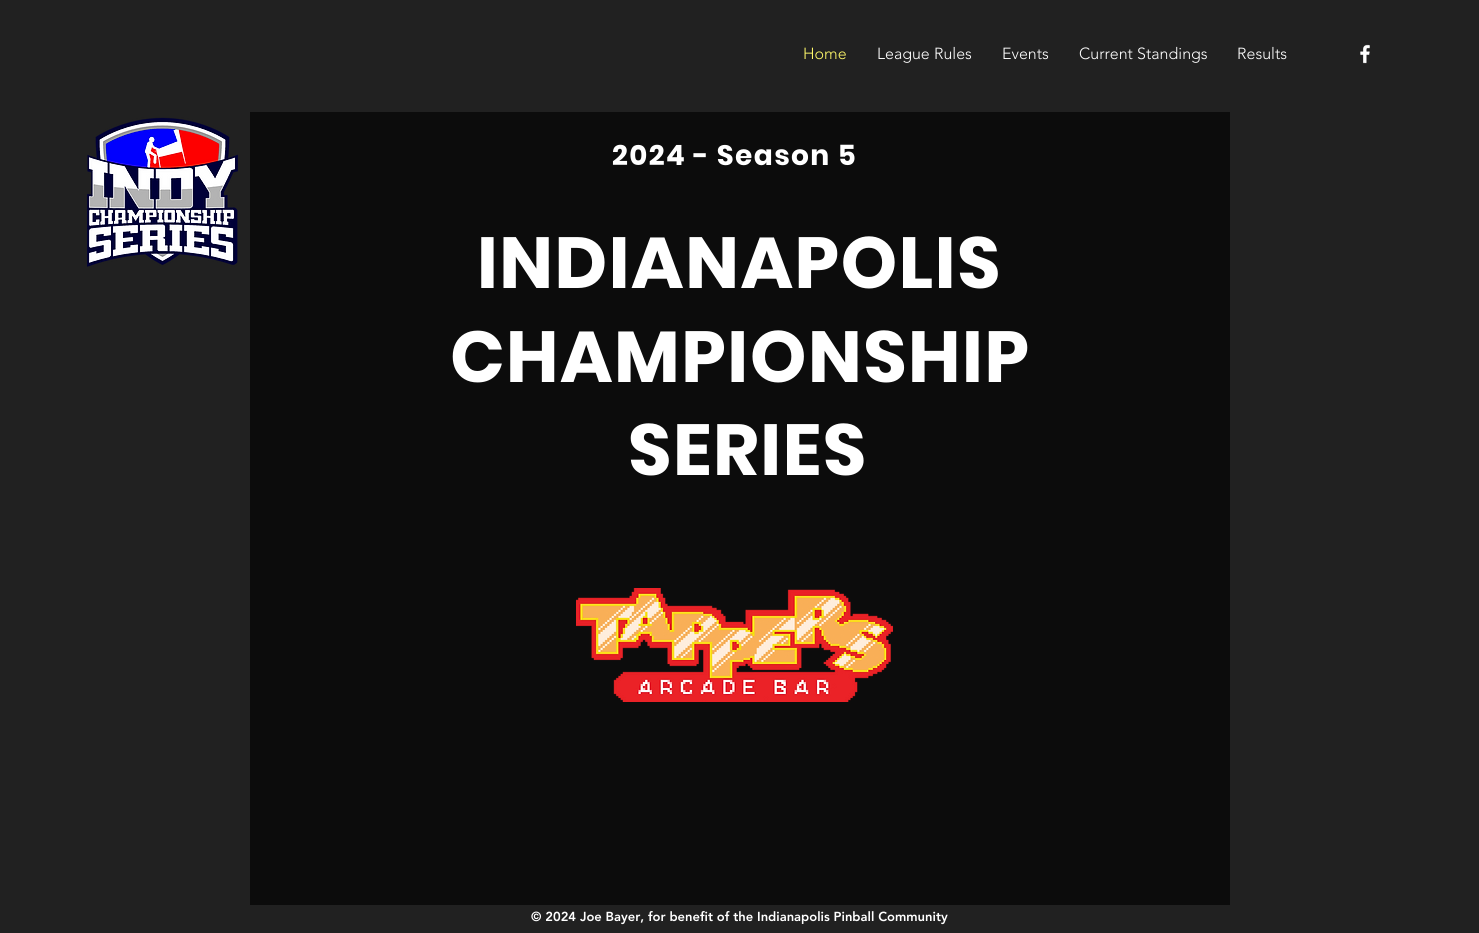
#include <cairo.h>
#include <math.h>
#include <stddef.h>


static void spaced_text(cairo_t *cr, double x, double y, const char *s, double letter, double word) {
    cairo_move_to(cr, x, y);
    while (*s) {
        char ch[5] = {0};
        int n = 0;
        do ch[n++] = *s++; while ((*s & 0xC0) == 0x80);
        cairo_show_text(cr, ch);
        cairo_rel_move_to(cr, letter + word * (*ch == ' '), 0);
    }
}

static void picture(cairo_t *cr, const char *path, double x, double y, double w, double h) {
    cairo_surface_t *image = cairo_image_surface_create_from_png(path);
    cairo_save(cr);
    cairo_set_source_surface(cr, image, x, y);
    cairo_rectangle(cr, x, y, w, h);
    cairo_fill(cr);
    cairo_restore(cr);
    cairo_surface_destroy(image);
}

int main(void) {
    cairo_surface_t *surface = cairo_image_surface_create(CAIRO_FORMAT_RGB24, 1479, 933);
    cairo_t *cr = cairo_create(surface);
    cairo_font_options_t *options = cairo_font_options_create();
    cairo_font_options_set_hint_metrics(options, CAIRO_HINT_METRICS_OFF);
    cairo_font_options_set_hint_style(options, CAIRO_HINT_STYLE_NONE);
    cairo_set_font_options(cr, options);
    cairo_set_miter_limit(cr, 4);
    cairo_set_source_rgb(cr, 0.129, 0.129, 0.129);
    cairo_paint(cr);
    cairo_select_font_face(cr, "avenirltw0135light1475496 Light", CAIRO_FONT_SLANT_NORMAL, CAIRO_FONT_WEIGHT_NORMAL);
    cairo_set_font_size(cr, 16);
    cairo_set_source_rgb(cr, 1, 0.969, 0.416);
    cairo_move_to(cr, 803, 59);
    cairo_show_text(cr, "Home");
    cairo_set_source_rgb(cr, 1, 1, 1);
    cairo_move_to(cr, 877, 59);
    cairo_show_text(cr, "League Rules");
    cairo_move_to(cr, 1002, 59);
    cairo_show_text(cr, "Events");
    cairo_move_to(cr, 1079, 59);
    cairo_show_text(cr, "Current Standings");
    cairo_move_to(cr, 1237, 59);
    cairo_show_text(cr, "Results");
    picture(cr, "img1.png", 1360, 44, 10, 20);
    picture(cr, "img2.png", 87, 117, 151, 150);
    cairo_set_source_rgb(cr, 0.047, 0.047, 0.047);
    cairo_rectangle(cr, 250, 112, 980, 793);
    cairo_fill(cr);
    cairo_select_font_face(cr, "Poppins", CAIRO_FONT_SLANT_NORMAL, CAIRO_FONT_WEIGHT_BOLD);
    cairo_set_font_size(cr, 28);
    cairo_set_source_rgb(cr, 1, 1, 1);
    spaced_text(cr, 612, 165, "2024 - Season 5", 1.4, 0);
    cairo_set_font_size(cr, 72);
    spaced_text(cr, 477, 288, "INDIANAPOLIS", 1.5, 0);
    spaced_text(cr, 450, 382, "CHAMPIONSHIP", 1.5, 0);
    spaced_text(cr, 628, 475, "SERIES", 1.5, 0);
    picture(cr, "img3.png", 576, 588, 317, 114);
    cairo_select_font_face(cr, "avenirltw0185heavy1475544 Black", CAIRO_FONT_SLANT_NORMAL, CAIRO_FONT_WEIGHT_NORMAL);
    cairo_set_font_size(cr, 13);
    cairo_move_to(cr, 531, 921);
    cairo_show_text(cr, "© 2024 Joe Bayer, for benefit of the Indianapolis Pinball Community");
    cairo_surface_write_to_png(surface, "page.png");
    cairo_font_options_destroy(options);
    cairo_destroy(cr);
    cairo_surface_destroy(surface);
    return 0;
}
